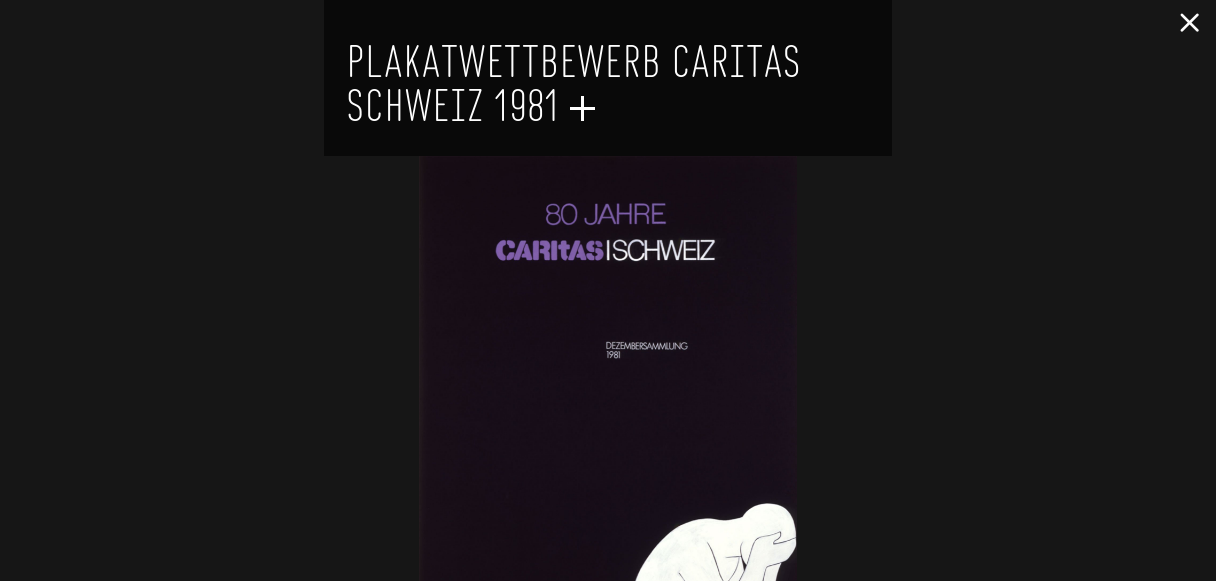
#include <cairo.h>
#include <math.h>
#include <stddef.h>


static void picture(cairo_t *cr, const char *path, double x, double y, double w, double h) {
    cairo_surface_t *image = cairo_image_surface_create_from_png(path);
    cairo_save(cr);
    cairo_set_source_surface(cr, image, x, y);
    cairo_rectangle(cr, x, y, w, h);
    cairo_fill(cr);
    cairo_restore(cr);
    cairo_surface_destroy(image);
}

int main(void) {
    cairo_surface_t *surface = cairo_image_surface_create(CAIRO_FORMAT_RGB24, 1216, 581);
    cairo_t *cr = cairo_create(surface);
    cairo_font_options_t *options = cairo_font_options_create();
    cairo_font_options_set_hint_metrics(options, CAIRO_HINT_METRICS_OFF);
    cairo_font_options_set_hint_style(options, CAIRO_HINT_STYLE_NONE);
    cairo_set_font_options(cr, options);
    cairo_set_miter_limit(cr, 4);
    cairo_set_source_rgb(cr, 0.086, 0.086, 0.086);
    cairo_paint(cr);
    cairo_select_font_face(cr, "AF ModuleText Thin", CAIRO_FONT_SLANT_NORMAL, CAIRO_FONT_WEIGHT_NORMAL);
    cairo_set_font_size(cr, 60);
    cairo_set_source_rgb(cr, 0.996, 0.996, 0.996);
    cairo_move_to(cr, 1178, 39);
    cairo_show_text(cr, "×");
    cairo_set_source_rgb(cr, 0.039, 0.039, 0.039);
    cairo_rectangle(cr, 324, 0, 568, 156);
    cairo_fill(cr);
    cairo_set_font_size(cr, 40);
    cairo_set_source_rgb(cr, 0.996, 0.996, 0.996);
    cairo_move_to(cr, 346, 77);
    cairo_show_text(cr, "PLAKATWETTBEWERB CARITAS");
    cairo_move_to(cr, 346, 121);
    cairo_show_text(cr, "SCHWEIZ 1981");
    cairo_rectangle(cr, 581, 96, 3, 25);
    cairo_fill(cr);
    cairo_rectangle(cr, 570, 107, 25, 3);
    cairo_fill(cr);
    picture(cr, "img1.png", 419, 156, 378, 425);
    cairo_surface_write_to_png(surface, "page.png");
    cairo_font_options_destroy(options);
    cairo_destroy(cr);
    cairo_surface_destroy(surface);
    return 0;
}
